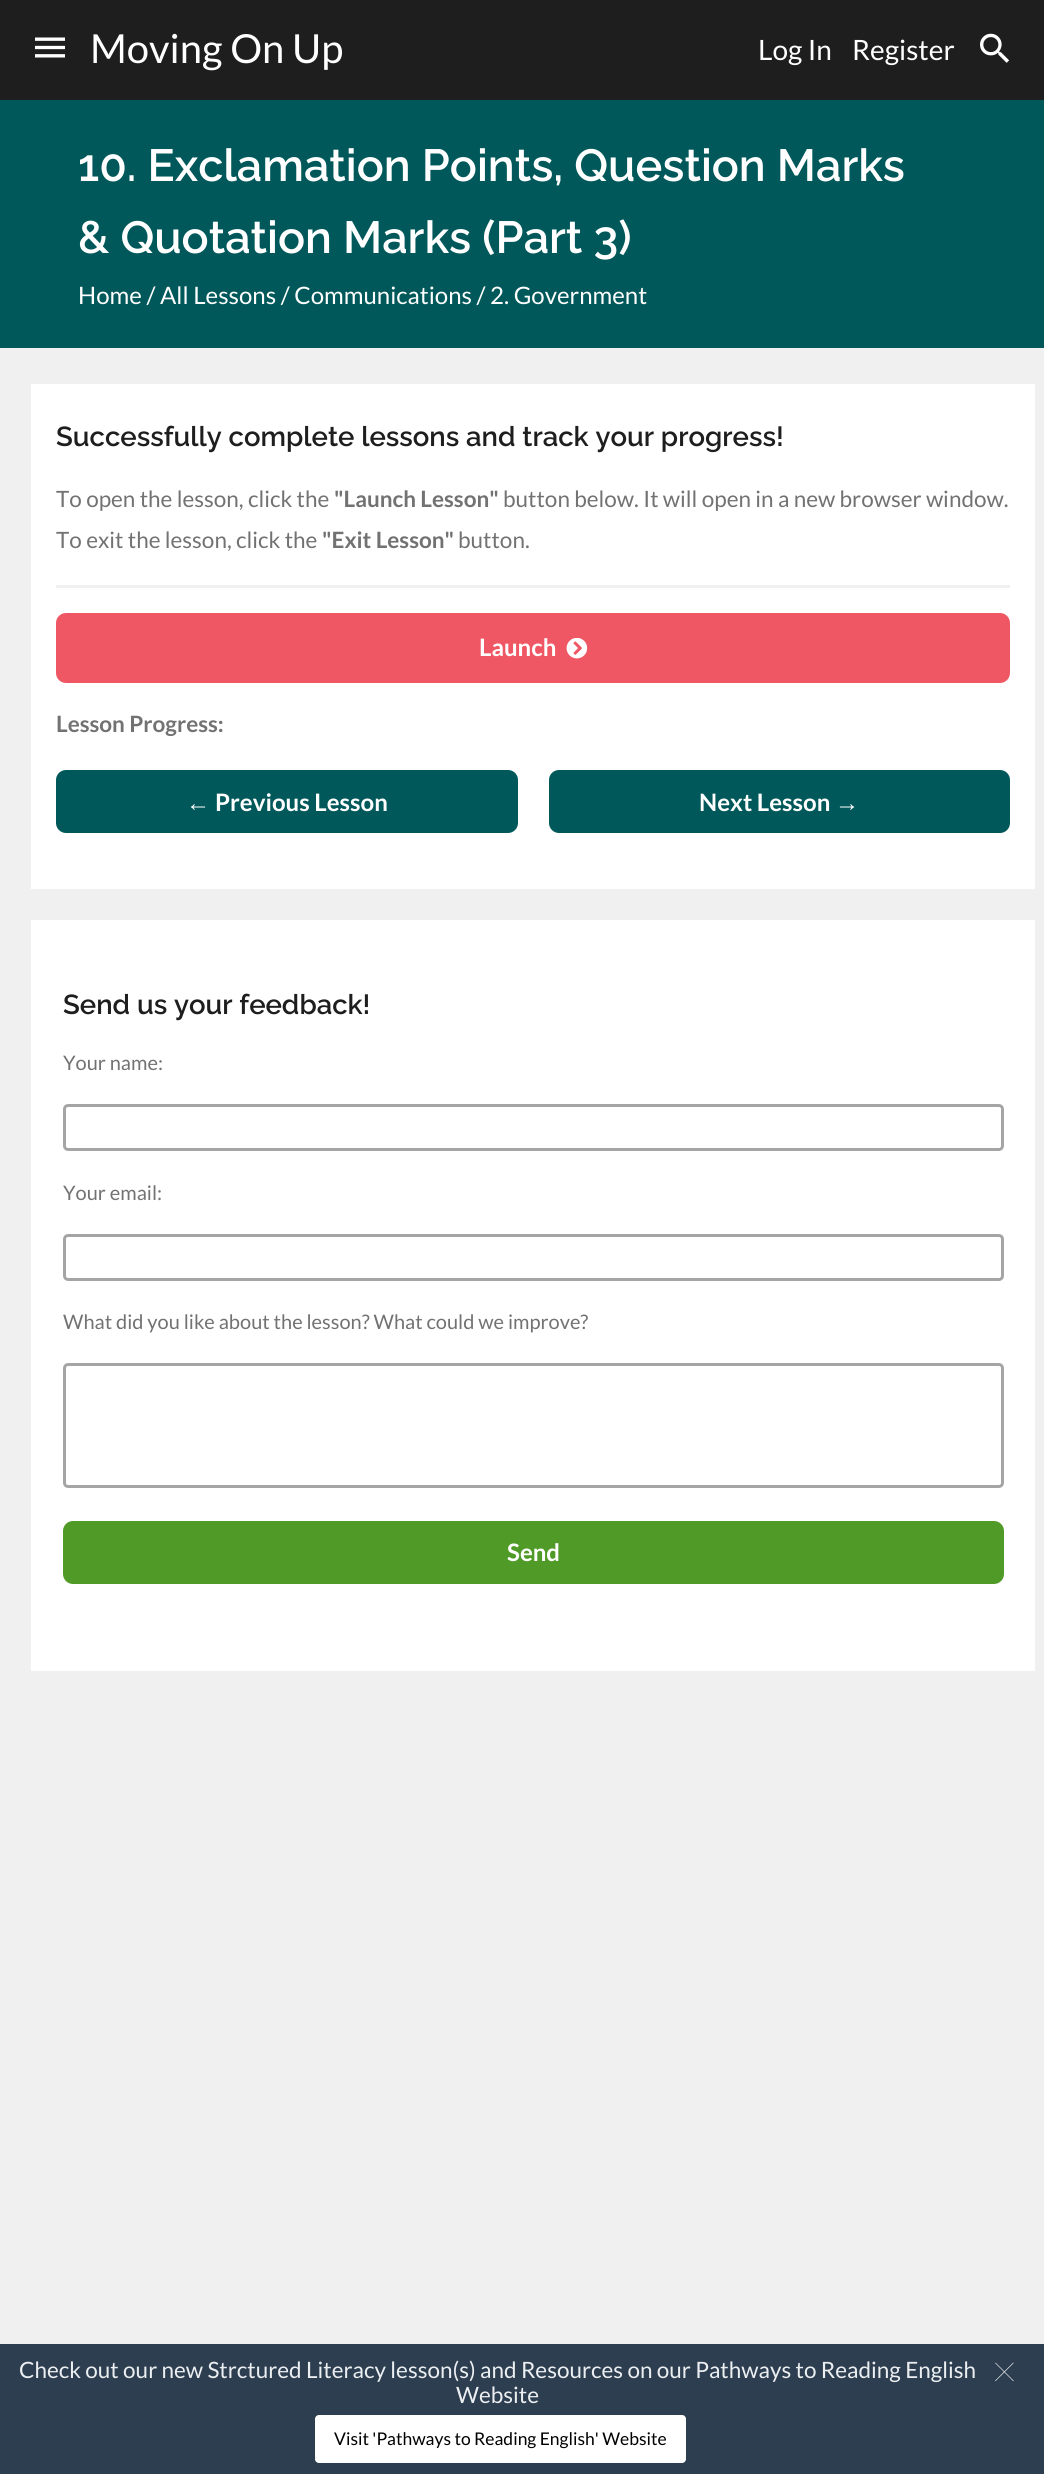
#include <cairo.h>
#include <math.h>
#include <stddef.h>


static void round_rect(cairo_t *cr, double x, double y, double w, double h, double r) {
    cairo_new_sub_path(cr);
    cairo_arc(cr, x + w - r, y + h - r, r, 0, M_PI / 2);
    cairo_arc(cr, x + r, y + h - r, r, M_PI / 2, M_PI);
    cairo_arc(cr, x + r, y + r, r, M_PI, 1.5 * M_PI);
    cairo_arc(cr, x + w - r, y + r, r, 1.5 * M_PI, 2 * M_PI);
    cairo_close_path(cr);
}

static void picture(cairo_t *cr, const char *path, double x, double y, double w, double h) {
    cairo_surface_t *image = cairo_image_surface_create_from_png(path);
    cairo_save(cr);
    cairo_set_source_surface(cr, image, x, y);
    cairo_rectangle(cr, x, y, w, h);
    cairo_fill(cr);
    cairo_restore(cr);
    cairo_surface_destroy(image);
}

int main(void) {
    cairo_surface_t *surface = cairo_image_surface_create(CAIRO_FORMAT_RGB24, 1044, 2474);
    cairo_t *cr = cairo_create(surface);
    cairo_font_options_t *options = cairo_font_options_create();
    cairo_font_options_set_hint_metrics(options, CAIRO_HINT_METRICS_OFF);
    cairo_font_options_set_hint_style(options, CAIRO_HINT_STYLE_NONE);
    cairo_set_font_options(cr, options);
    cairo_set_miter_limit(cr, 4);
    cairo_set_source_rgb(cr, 0.941, 0.941, 0.941);
    cairo_paint(cr);
    cairo_set_source_rgb(cr, 0.118, 0.118, 0.118);
    cairo_rectangle(cr, 0, 0, 1044, 100);
    cairo_fill(cr);
    picture(cr, "img1.png", 35, 37, 30, 21);
    cairo_select_font_face(cr, "Lato", CAIRO_FONT_SLANT_NORMAL, CAIRO_FONT_WEIGHT_NORMAL);
    cairo_set_font_size(cr, 40);
    cairo_set_source_rgb(cr, 1, 1, 1);
    cairo_move_to(cr, 90, 63);
    cairo_show_text(cr, "Moving On Up");
    cairo_set_font_size(cr, 28);
    cairo_move_to(cr, 758, 60);
    cairo_show_text(cr, "Log In");
    cairo_move_to(cr, 852, 60);
    cairo_show_text(cr, "Register");
    picture(cr, "img2.png", 980, 33, 29, 30);
    cairo_set_source_rgb(cr, 0.004, 0.345, 0.353);
    cairo_rectangle(cr, 0, 100, 1044, 248);
    cairo_fill(cr);
    cairo_select_font_face(cr, "Raleway SemiBold", CAIRO_FONT_SLANT_NORMAL, CAIRO_FONT_WEIGHT_NORMAL);
    cairo_set_font_size(cr, 45);
    cairo_set_source_rgb(cr, 1, 1, 1);
    cairo_move_to(cr, 78, 181);
    cairo_show_text(cr, "10. Exclamation Points, Question Marks");
    cairo_move_to(cr, 78, 253);
    cairo_show_text(cr, "& Quotation Marks (Part 3)");
    cairo_select_font_face(cr, "Lato", CAIRO_FONT_SLANT_NORMAL, CAIRO_FONT_WEIGHT_NORMAL);
    cairo_set_font_size(cr, 24);
    cairo_move_to(cr, 78, 304);
    cairo_show_text(cr, "Home / All Lessons / Communications / 2. Government");
    cairo_rectangle(cr, 31, 384, 1004, 505);
    cairo_fill(cr);
    cairo_select_font_face(cr, "Raleway SemiBold", CAIRO_FONT_SLANT_NORMAL, CAIRO_FONT_WEIGHT_NORMAL);
    cairo_set_font_size(cr, 27.5);
    cairo_set_source_rgb(cr, 0.118, 0.118, 0.118);
    cairo_move_to(cr, 56, 446);
    cairo_show_text(cr, "Successfully complete lessons and track your progress!");
    cairo_select_font_face(cr, "Lato", CAIRO_FONT_SLANT_NORMAL, CAIRO_FONT_WEIGHT_NORMAL);
    cairo_set_font_size(cr, 22.5);
    cairo_set_source_rgb(cr, 0.447, 0.447, 0.447);
    cairo_move_to(cr, 56, 507);
    cairo_show_text(cr, "To open the lesson, click the");
    cairo_select_font_face(cr, "Lato", CAIRO_FONT_SLANT_NORMAL, CAIRO_FONT_WEIGHT_BOLD);
    cairo_move_to(cr, 334, 507);
    cairo_show_text(cr, "\"Launch Lesson\"");
    cairo_select_font_face(cr, "Lato", CAIRO_FONT_SLANT_NORMAL, CAIRO_FONT_WEIGHT_NORMAL);
    cairo_move_to(cr, 503, 507);
    cairo_show_text(cr, "button below. It will open in a new browser window.");
    cairo_move_to(cr, 56, 548);
    cairo_show_text(cr, "To exit the lesson, click the");
    cairo_select_font_face(cr, "Lato", CAIRO_FONT_SLANT_NORMAL, CAIRO_FONT_WEIGHT_BOLD);
    cairo_move_to(cr, 322, 548);
    cairo_show_text(cr, "\"Exit Lesson\"");
    cairo_select_font_face(cr, "Lato", CAIRO_FONT_SLANT_NORMAL, CAIRO_FONT_WEIGHT_NORMAL);
    cairo_move_to(cr, 458, 548);
    cairo_show_text(cr, "button.");
    cairo_set_source_rgb(cr, 0.941, 0.941, 0.941);
    cairo_rectangle(cr, 56, 585, 954, 3);
    cairo_fill(cr);
    cairo_set_source_rgb(cr, 0.937, 0.341, 0.392);
    round_rect(cr, 56, 613, 954, 70, 10);
    cairo_fill(cr);
    cairo_select_font_face(cr, "Lato", CAIRO_FONT_SLANT_NORMAL, CAIRO_FONT_WEIGHT_BOLD);
    cairo_set_font_size(cr, 24);
    cairo_set_source_rgb(cr, 1, 1, 1);
    cairo_move_to(cr, 479, 656);
    cairo_show_text(cr, "Launch");
    picture(cr, "img3.png", 566, 638, 22, 21);
    cairo_set_font_size(cr, 22.5);
    cairo_set_source_rgb(cr, 0.447, 0.447, 0.447);
    cairo_move_to(cr, 56, 732);
    cairo_show_text(cr, "Lesson Progress:");
    cairo_set_source_rgb(cr, 0.004, 0.345, 0.353);
    round_rect(cr, 56, 770, 462, 63, 10);
    cairo_fill(cr);
    cairo_select_font_face(cr, "Liberation Sans", CAIRO_FONT_SLANT_NORMAL, CAIRO_FONT_WEIGHT_BOLD);
    cairo_set_font_size(cr, 24);
    cairo_set_source_rgb(cr, 1, 1, 1);
    cairo_move_to(cr, 186, 811);
    cairo_show_text(cr, "←");
    cairo_select_font_face(cr, "Lato", CAIRO_FONT_SLANT_NORMAL, CAIRO_FONT_WEIGHT_BOLD);
    cairo_move_to(cr, 215, 811);
    cairo_show_text(cr, "Previous Lesson");
    cairo_set_source_rgb(cr, 0.004, 0.345, 0.353);
    round_rect(cr, 549, 770, 461, 63, 10);
    cairo_fill(cr);
    cairo_set_source_rgb(cr, 1, 1, 1);
    cairo_move_to(cr, 699, 811);
    cairo_show_text(cr, "Next Lesson");
    cairo_select_font_face(cr, "Liberation Sans", CAIRO_FONT_SLANT_NORMAL, CAIRO_FONT_WEIGHT_BOLD);
    cairo_move_to(cr, 835, 811);
    cairo_show_text(cr, "→");
    cairo_rectangle(cr, 31, 920, 1004, 751);
    cairo_fill(cr);
    cairo_select_font_face(cr, "Raleway SemiBold", CAIRO_FONT_SLANT_NORMAL, CAIRO_FONT_WEIGHT_NORMAL);
    cairo_set_font_size(cr, 27.5);
    cairo_set_source_rgb(cr, 0.118, 0.118, 0.118);
    cairo_move_to(cr, 63, 1014);
    cairo_show_text(cr, "Send us your feedback!");
    cairo_select_font_face(cr, "Lato", CAIRO_FONT_SLANT_NORMAL, CAIRO_FONT_WEIGHT_NORMAL);
    cairo_set_font_size(cr, 20);
    cairo_set_source_rgb(cr, 0.447, 0.447, 0.447);
    cairo_move_to(cr, 63, 1070);
    cairo_show_text(cr, "Your name:");
    round_rect(cr, 64.5, 1105.5, 938, 44, 3.5);
    cairo_set_source_rgb(cr, 0.647, 0.647, 0.647);
    cairo_set_line_width(cr, 3);
    cairo_stroke(cr);
    cairo_set_source_rgb(cr, 0.447, 0.447, 0.447);
    cairo_move_to(cr, 63, 1200);
    cairo_show_text(cr, "Your email:");
    round_rect(cr, 64.5, 1235.5, 938, 44, 3.5);
    cairo_set_source_rgb(cr, 0.647, 0.647, 0.647);
    cairo_stroke(cr);
    cairo_set_source_rgb(cr, 0.447, 0.447, 0.447);
    cairo_move_to(cr, 63, 1329);
    cairo_show_text(cr, "What did you like about the lesson? What could we improve?");
    round_rect(cr, 64.5, 1364.5, 938, 122, 3.5);
    cairo_set_source_rgb(cr, 0.647, 0.647, 0.647);
    cairo_stroke(cr);
    cairo_set_source_rgb(cr, 0.314, 0.608, 0.153);
    round_rect(cr, 63, 1521, 941, 63, 10);
    cairo_fill(cr);
    cairo_select_font_face(cr, "Lato", CAIRO_FONT_SLANT_NORMAL, CAIRO_FONT_WEIGHT_BOLD);
    cairo_set_font_size(cr, 24);
    cairo_set_source_rgb(cr, 1, 1, 1);
    cairo_move_to(cr, 507, 1561);
    cairo_show_text(cr, "Send");
    cairo_set_source_rgb(cr, 0.176, 0.243, 0.314);
    cairo_rectangle(cr, 0, 2344, 1044, 130);
    cairo_fill(cr);
    cairo_select_font_face(cr, "Lato", CAIRO_FONT_SLANT_NORMAL, CAIRO_FONT_WEIGHT_NORMAL);
    cairo_set_font_size(cr, 22.5);
    cairo_set_source_rgb(cr, 0.925, 0.937, 0.945);
    cairo_move_to(cr, 19, 2378);
    cairo_show_text(cr, "Check out our new Strctured Literacy lesson(s) and Resources on our Pathways to Reading English");
    cairo_move_to(cr, 456, 2403);
    cairo_show_text(cr, "Website");
    cairo_set_source_rgb(cr, 1, 1, 1);
    round_rect(cr, 315, 2415, 371, 48, 4);
    cairo_fill(cr);
    cairo_set_font_size(cr, 17.5);
    cairo_set_source_rgb(cr, 0, 0, 0);
    cairo_move_to(cr, 334, 2445);
    cairo_show_text(cr, "Visit 'Pathways to Reading English' Website");
    picture(cr, "img4.png", 995, 2362, 19, 20);
    cairo_surface_write_to_png(surface, "page.png");
    cairo_font_options_destroy(options);
    cairo_destroy(cr);
    cairo_surface_destroy(surface);
    return 0;
}
